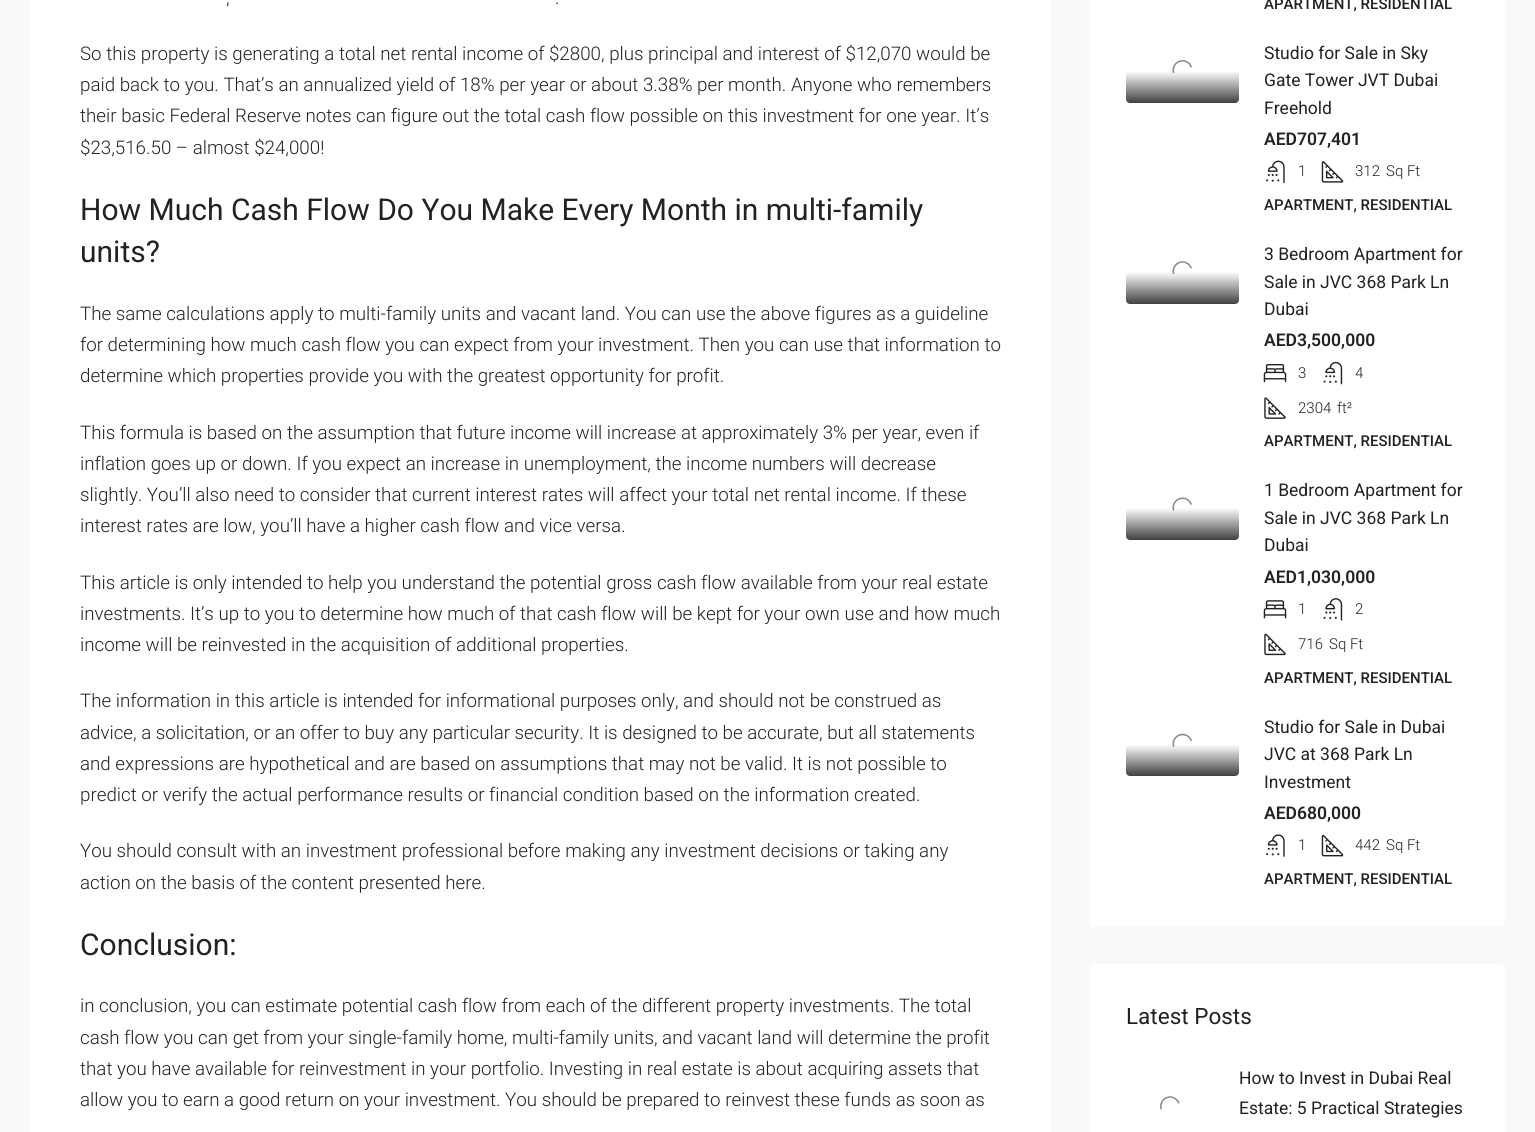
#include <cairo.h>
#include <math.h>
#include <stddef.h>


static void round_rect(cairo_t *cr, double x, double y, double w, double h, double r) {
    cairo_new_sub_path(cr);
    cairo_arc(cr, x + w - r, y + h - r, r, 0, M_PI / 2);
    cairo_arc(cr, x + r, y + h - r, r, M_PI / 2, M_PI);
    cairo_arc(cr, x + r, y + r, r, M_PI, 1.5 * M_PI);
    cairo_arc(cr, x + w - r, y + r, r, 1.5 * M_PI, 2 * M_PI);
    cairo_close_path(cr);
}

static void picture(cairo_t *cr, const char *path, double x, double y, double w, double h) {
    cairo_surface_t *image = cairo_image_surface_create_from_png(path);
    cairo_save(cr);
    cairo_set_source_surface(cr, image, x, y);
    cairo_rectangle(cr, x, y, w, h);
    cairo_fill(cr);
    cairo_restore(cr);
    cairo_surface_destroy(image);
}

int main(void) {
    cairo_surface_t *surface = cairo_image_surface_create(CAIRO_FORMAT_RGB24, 1535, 1132);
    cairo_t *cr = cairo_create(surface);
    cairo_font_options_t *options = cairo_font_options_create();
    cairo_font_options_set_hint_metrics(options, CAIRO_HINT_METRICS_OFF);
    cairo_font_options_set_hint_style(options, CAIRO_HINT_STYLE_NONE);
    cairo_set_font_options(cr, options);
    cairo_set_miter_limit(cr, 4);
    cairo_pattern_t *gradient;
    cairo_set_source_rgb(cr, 0.973, 0.973, 0.973);
    cairo_paint(cr);
    cairo_set_source_rgb(cr, 1, 1, 1);
    cairo_rectangle(cr, 30, 0, 1021, 1132);
    cairo_fill(cr);
    cairo_select_font_face(cr, "Roboto Light", CAIRO_FONT_SLANT_NORMAL, CAIRO_FONT_WEIGHT_NORMAL);
    cairo_set_font_size(cr, 18.75);
    cairo_set_source_rgb(cr, 0.133, 0.133, 0.133);
    cairo_move_to(cr, 226, 4);
    cairo_show_text(cr, ",");
    cairo_move_to(cr, 555, 4);
    cairo_show_text(cr, ".");
    cairo_move_to(cr, 80, 60);
    cairo_show_text(cr, "So this property is generating a total net rental income of $2800, plus principal and interest of $12,070 would be");
    cairo_move_to(cr, 80, 91);
    cairo_show_text(cr, "paid back to you. That’s an annualized yield of 18% per year or about 3.38% per month. Anyone who remembers");
    cairo_move_to(cr, 80, 122);
    cairo_show_text(cr, "their basic Federal Reserve notes can figure out the total cash flow possible on this investment for one year. It’s");
    cairo_move_to(cr, 80, 154);
    cairo_show_text(cr, "$23,516.50 – almost $24,000!");
    cairo_select_font_face(cr, "Roboto", CAIRO_FONT_SLANT_NORMAL, CAIRO_FONT_WEIGHT_NORMAL);
    cairo_set_font_size(cr, 30);
    cairo_move_to(cr, 80, 220);
    cairo_show_text(cr, "How Much Cash Flow Do You Make Every Month in multi-family");
    cairo_move_to(cr, 80, 262);
    cairo_show_text(cr, "units?");
    cairo_select_font_face(cr, "Roboto Light", CAIRO_FONT_SLANT_NORMAL, CAIRO_FONT_WEIGHT_NORMAL);
    cairo_set_font_size(cr, 18.75);
    cairo_move_to(cr, 80, 320);
    cairo_show_text(cr, "The same calculations apply to multi-family units and vacant land. You can use the above figures as a guideline");
    cairo_move_to(cr, 80, 351);
    cairo_show_text(cr, "for determining how much cash flow you can expect from your investment. Then you can use that information to");
    cairo_move_to(cr, 80, 382);
    cairo_show_text(cr, "determine which properties provide you with the greatest opportunity for profit.");
    cairo_move_to(cr, 80, 439);
    cairo_show_text(cr, "This formula is based on the assumption that future income will increase at approximately 3% per year, even if");
    cairo_move_to(cr, 80, 470);
    cairo_show_text(cr, "inflation goes up or down. If you expect an increase in unemployment, the income numbers will decrease");
    cairo_move_to(cr, 80, 501);
    cairo_show_text(cr, "slightly. You’ll also need to consider that current interest rates will affect your total net rental income. If these");
    cairo_move_to(cr, 80, 532);
    cairo_show_text(cr, "interest rates are low, you’ll have a higher cash flow and vice versa.");
    cairo_move_to(cr, 80, 589);
    cairo_show_text(cr, "This article is only intended to help you understand the potential gross cash flow available from your real estate");
    cairo_move_to(cr, 80, 620);
    cairo_show_text(cr, "investments. It’s up to you to determine how much of that cash flow will be kept for your own use and how much");
    cairo_move_to(cr, 80, 651);
    cairo_show_text(cr, "income will be reinvested in the acquisition of additional properties.");
    cairo_move_to(cr, 80, 707);
    cairo_show_text(cr, "The information in this article is intended for informational purposes only, and should not be construed as");
    cairo_move_to(cr, 80, 739);
    cairo_show_text(cr, "advice, a solicitation, or an offer to buy any particular security. It is designed to be accurate, but all statements");
    cairo_move_to(cr, 80, 770);
    cairo_show_text(cr, "and expressions are hypothetical and are based on assumptions that may not be valid. It is not possible to");
    cairo_move_to(cr, 80, 801);
    cairo_show_text(cr, "predict or verify the actual performance results or financial condition based on the information created.");
    cairo_move_to(cr, 80, 857);
    cairo_show_text(cr, "You should consult with an investment professional before making any investment decisions or taking any");
    cairo_move_to(cr, 80, 889);
    cairo_show_text(cr, "action on the basis of the content presented here.");
    cairo_select_font_face(cr, "Roboto", CAIRO_FONT_SLANT_NORMAL, CAIRO_FONT_WEIGHT_NORMAL);
    cairo_set_font_size(cr, 30);
    cairo_move_to(cr, 80, 955);
    cairo_show_text(cr, "Conclusion:");
    cairo_select_font_face(cr, "Roboto Light", CAIRO_FONT_SLANT_NORMAL, CAIRO_FONT_WEIGHT_NORMAL);
    cairo_set_font_size(cr, 18.75);
    cairo_move_to(cr, 80, 1012);
    cairo_show_text(cr, "in conclusion, you can estimate potential cash flow from each of the different property investments. The total");
    cairo_move_to(cr, 80, 1044);
    cairo_show_text(cr, "cash flow you can get from your single-family home, multi-family units, and vacant land will determine the profit");
    cairo_move_to(cr, 80, 1075);
    cairo_show_text(cr, "that you have available for reinvestment in your portfolio. Investing in real estate is about acquiring assets that");
    cairo_move_to(cr, 80, 1106);
    cairo_show_text(cr, "allow you to earn a good return on your investment. You should be prepared to reinvest these funds as soon as");
    cairo_set_source_rgb(cr, 1, 1, 1);
    round_rect(cr, 1089, -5, 416, 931, 5);
    cairo_fill(cr);
    cairo_select_font_face(cr, "Roboto Medium", CAIRO_FONT_SLANT_NORMAL, CAIRO_FONT_WEIGHT_NORMAL);
    cairo_set_font_size(cr, 15);
    cairo_set_source_rgb(cr, 0.133, 0.133, 0.133);
    cairo_move_to(cr, 1264, 9);
    cairo_show_text(cr, "APARTMENT, RESIDENTIAL");
    picture(cr, "img1.png", 1172, 60, 21, 13);
    gradient = cairo_pattern_create_linear(1183, 39, 1183, 103);
    cairo_pattern_add_color_stop_rgba(gradient, 0, 0, 0, 0, 0);
    cairo_pattern_add_color_stop_rgba(gradient, 0.5, 0, 0, 0, 0);
    cairo_pattern_add_color_stop_rgba(gradient, 1, 0, 0, 0, 0.75);
    cairo_set_source(cr, gradient);
    cairo_pattern_destroy(gradient);
    round_rect(cr, 1126, 39, 113, 64, 4);
    cairo_fill(cr);
    cairo_select_font_face(cr, "Roboto", CAIRO_FONT_SLANT_NORMAL, CAIRO_FONT_WEIGHT_NORMAL);
    cairo_set_font_size(cr, 17.5);
    cairo_set_source_rgb(cr, 0.133, 0.133, 0.133);
    cairo_move_to(cr, 1264, 59);
    cairo_show_text(cr, "Studio for Sale in Sky");
    cairo_move_to(cr, 1264, 86);
    cairo_show_text(cr, "Gate Tower JVT Dubai");
    cairo_move_to(cr, 1264, 114);
    cairo_show_text(cr, "Freehold");
    cairo_select_font_face(cr, "Roboto SemiBold", CAIRO_FONT_SLANT_NORMAL, CAIRO_FONT_WEIGHT_NORMAL);
    cairo_move_to(cr, 1264, 145);
    cairo_show_text(cr, "AED707,401");
    picture(cr, "img2.png", 1266, 160, 19, 24);
    cairo_select_font_face(cr, "Roboto Light", CAIRO_FONT_SLANT_NORMAL, CAIRO_FONT_WEIGHT_NORMAL);
    cairo_set_font_size(cr, 15);
    cairo_move_to(cr, 1298, 176);
    cairo_show_text(cr, "1");
    picture(cr, "img3.png", 1321, 161, 23, 22);
    cairo_move_to(cr, 1355, 176);
    cairo_show_text(cr, "312");
    cairo_move_to(cr, 1386, 176);
    cairo_show_text(cr, "Sq Ft");
    cairo_select_font_face(cr, "Roboto Medium", CAIRO_FONT_SLANT_NORMAL, CAIRO_FONT_WEIGHT_NORMAL);
    cairo_move_to(cr, 1264, 210);
    cairo_show_text(cr, "APARTMENT, RESIDENTIAL");
    picture(cr, "img4.png", 1172, 261, 20, 14);
    gradient = cairo_pattern_create_linear(1183, 240, 1183, 304);
    cairo_pattern_add_color_stop_rgba(gradient, 0, 0, 0, 0, 0);
    cairo_pattern_add_color_stop_rgba(gradient, 0.5, 0, 0, 0, 0);
    cairo_pattern_add_color_stop_rgba(gradient, 1, 0, 0, 0, 0.75);
    cairo_set_source(cr, gradient);
    cairo_pattern_destroy(gradient);
    round_rect(cr, 1126, 240, 113, 64, 4);
    cairo_fill(cr);
    cairo_select_font_face(cr, "Roboto", CAIRO_FONT_SLANT_NORMAL, CAIRO_FONT_WEIGHT_NORMAL);
    cairo_set_font_size(cr, 17.5);
    cairo_set_source_rgb(cr, 0.133, 0.133, 0.133);
    cairo_move_to(cr, 1264, 260);
    cairo_show_text(cr, "3 Bedroom Apartment for");
    cairo_move_to(cr, 1264, 288);
    cairo_show_text(cr, "Sale in JVC 368 Park Ln");
    cairo_move_to(cr, 1264, 315);
    cairo_show_text(cr, "Dubai");
    cairo_select_font_face(cr, "Roboto SemiBold", CAIRO_FONT_SLANT_NORMAL, CAIRO_FONT_WEIGHT_NORMAL);
    cairo_move_to(cr, 1264, 346);
    cairo_show_text(cr, "AED3,500,000");
    picture(cr, "img5.png", 1263, 364, 24, 19);
    cairo_select_font_face(cr, "Roboto Light", CAIRO_FONT_SLANT_NORMAL, CAIRO_FONT_WEIGHT_NORMAL);
    cairo_set_font_size(cr, 15);
    cairo_move_to(cr, 1298, 378);
    cairo_show_text(cr, "3");
    picture(cr, "img6.png", 1323, 361, 20, 24);
    cairo_move_to(cr, 1355, 378);
    cairo_show_text(cr, "4");
    picture(cr, "img7.png", 1264, 397, 22, 22);
    cairo_move_to(cr, 1298, 413);
    cairo_show_text(cr, "2304");
    cairo_move_to(cr, 1337, 413);
    cairo_show_text(cr, "ft²");
    cairo_select_font_face(cr, "Roboto Medium", CAIRO_FONT_SLANT_NORMAL, CAIRO_FONT_WEIGHT_NORMAL);
    cairo_move_to(cr, 1264, 446);
    cairo_show_text(cr, "APARTMENT, RESIDENTIAL");
    picture(cr, "img8.png", 1172, 497, 21, 14);
    gradient = cairo_pattern_create_linear(1183, 476, 1183, 540);
    cairo_pattern_add_color_stop_rgba(gradient, 0, 0, 0, 0, 0);
    cairo_pattern_add_color_stop_rgba(gradient, 0.5, 0, 0, 0, 0);
    cairo_pattern_add_color_stop_rgba(gradient, 1, 0, 0, 0, 0.75);
    cairo_set_source(cr, gradient);
    cairo_pattern_destroy(gradient);
    round_rect(cr, 1126, 476, 113, 64, 4);
    cairo_fill(cr);
    cairo_select_font_face(cr, "Roboto", CAIRO_FONT_SLANT_NORMAL, CAIRO_FONT_WEIGHT_NORMAL);
    cairo_set_font_size(cr, 17.5);
    cairo_set_source_rgb(cr, 0.133, 0.133, 0.133);
    cairo_move_to(cr, 1264, 496);
    cairo_show_text(cr, "1 Bedroom Apartment for");
    cairo_move_to(cr, 1264, 524);
    cairo_show_text(cr, "Sale in JVC 368 Park Ln");
    cairo_move_to(cr, 1264, 551);
    cairo_show_text(cr, "Dubai");
    cairo_select_font_face(cr, "Roboto SemiBold", CAIRO_FONT_SLANT_NORMAL, CAIRO_FONT_WEIGHT_NORMAL);
    cairo_move_to(cr, 1264, 583);
    cairo_show_text(cr, "AED1,030,000");
    picture(cr, "img9.png", 1263, 600, 24, 19);
    cairo_select_font_face(cr, "Roboto Light", CAIRO_FONT_SLANT_NORMAL, CAIRO_FONT_WEIGHT_NORMAL);
    cairo_set_font_size(cr, 15);
    cairo_move_to(cr, 1298, 614);
    cairo_show_text(cr, "1");
    picture(cr, "img10.png", 1323, 598, 20, 23);
    cairo_move_to(cr, 1355, 614);
    cairo_show_text(cr, "2");
    picture(cr, "img11.png", 1264, 633, 22, 23);
    cairo_move_to(cr, 1298, 649);
    cairo_show_text(cr, "716");
    cairo_move_to(cr, 1329, 649);
    cairo_show_text(cr, "Sq Ft");
    cairo_select_font_face(cr, "Roboto Medium", CAIRO_FONT_SLANT_NORMAL, CAIRO_FONT_WEIGHT_NORMAL);
    cairo_move_to(cr, 1264, 683);
    cairo_show_text(cr, "APARTMENT, RESIDENTIAL");
    picture(cr, "img12.png", 1172, 733, 21, 14);
    gradient = cairo_pattern_create_linear(1183, 713, 1183, 776);
    cairo_pattern_add_color_stop_rgba(gradient, 0, 0, 0, 0, 0);
    cairo_pattern_add_color_stop_rgba(gradient, 0.5, 0, 0, 0, 0);
    cairo_pattern_add_color_stop_rgba(gradient, 1, 0, 0, 0, 0.75);
    cairo_set_source(cr, gradient);
    cairo_pattern_destroy(gradient);
    round_rect(cr, 1126, 713, 113, 63, 4);
    cairo_fill(cr);
    cairo_select_font_face(cr, "Roboto", CAIRO_FONT_SLANT_NORMAL, CAIRO_FONT_WEIGHT_NORMAL);
    cairo_set_font_size(cr, 17.5);
    cairo_set_source_rgb(cr, 0.133, 0.133, 0.133);
    cairo_move_to(cr, 1264, 733);
    cairo_show_text(cr, "Studio for Sale in Dubai");
    cairo_move_to(cr, 1264, 760);
    cairo_show_text(cr, "JVC at 368 Park Ln");
    cairo_move_to(cr, 1264, 788);
    cairo_show_text(cr, "Investment");
    cairo_select_font_face(cr, "Roboto SemiBold", CAIRO_FONT_SLANT_NORMAL, CAIRO_FONT_WEIGHT_NORMAL);
    cairo_move_to(cr, 1264, 819);
    cairo_show_text(cr, "AED680,000");
    picture(cr, "img13.png", 1266, 834, 19, 23);
    cairo_select_font_face(cr, "Roboto Light", CAIRO_FONT_SLANT_NORMAL, CAIRO_FONT_WEIGHT_NORMAL);
    cairo_set_font_size(cr, 15);
    cairo_move_to(cr, 1298, 850);
    cairo_show_text(cr, "1");
    picture(cr, "img14.png", 1321, 834, 23, 23);
    cairo_move_to(cr, 1355, 850);
    cairo_show_text(cr, "442");
    cairo_move_to(cr, 1386, 850);
    cairo_show_text(cr, "Sq Ft");
    cairo_select_font_face(cr, "Roboto Medium", CAIRO_FONT_SLANT_NORMAL, CAIRO_FONT_WEIGHT_NORMAL);
    cairo_move_to(cr, 1264, 884);
    cairo_show_text(cr, "APARTMENT, RESIDENTIAL");
    cairo_set_source_rgb(cr, 1, 1, 1);
    round_rect(cr, 1089, 964, 416, 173, 5);
    cairo_fill(cr);
    cairo_select_font_face(cr, "Roboto", CAIRO_FONT_SLANT_NORMAL, CAIRO_FONT_WEIGHT_NORMAL);
    cairo_set_font_size(cr, 22.5);
    cairo_set_source_rgb(cr, 0.133, 0.133, 0.133);
    cairo_move_to(cr, 1126, 1024);
    cairo_show_text(cr, "Latest Posts");
    picture(cr, "img15.png", 1160, 1096, 20, 14);
    cairo_set_font_size(cr, 17.5);
    cairo_move_to(cr, 1239, 1084);
    cairo_show_text(cr, "How to Invest in Dubai Real");
    cairo_move_to(cr, 1239, 1114);
    cairo_show_text(cr, "Estate: 5 Practical Strategies");
    cairo_surface_write_to_png(surface, "page.png");
    cairo_font_options_destroy(options);
    cairo_destroy(cr);
    cairo_surface_destroy(surface);
    return 0;
}
